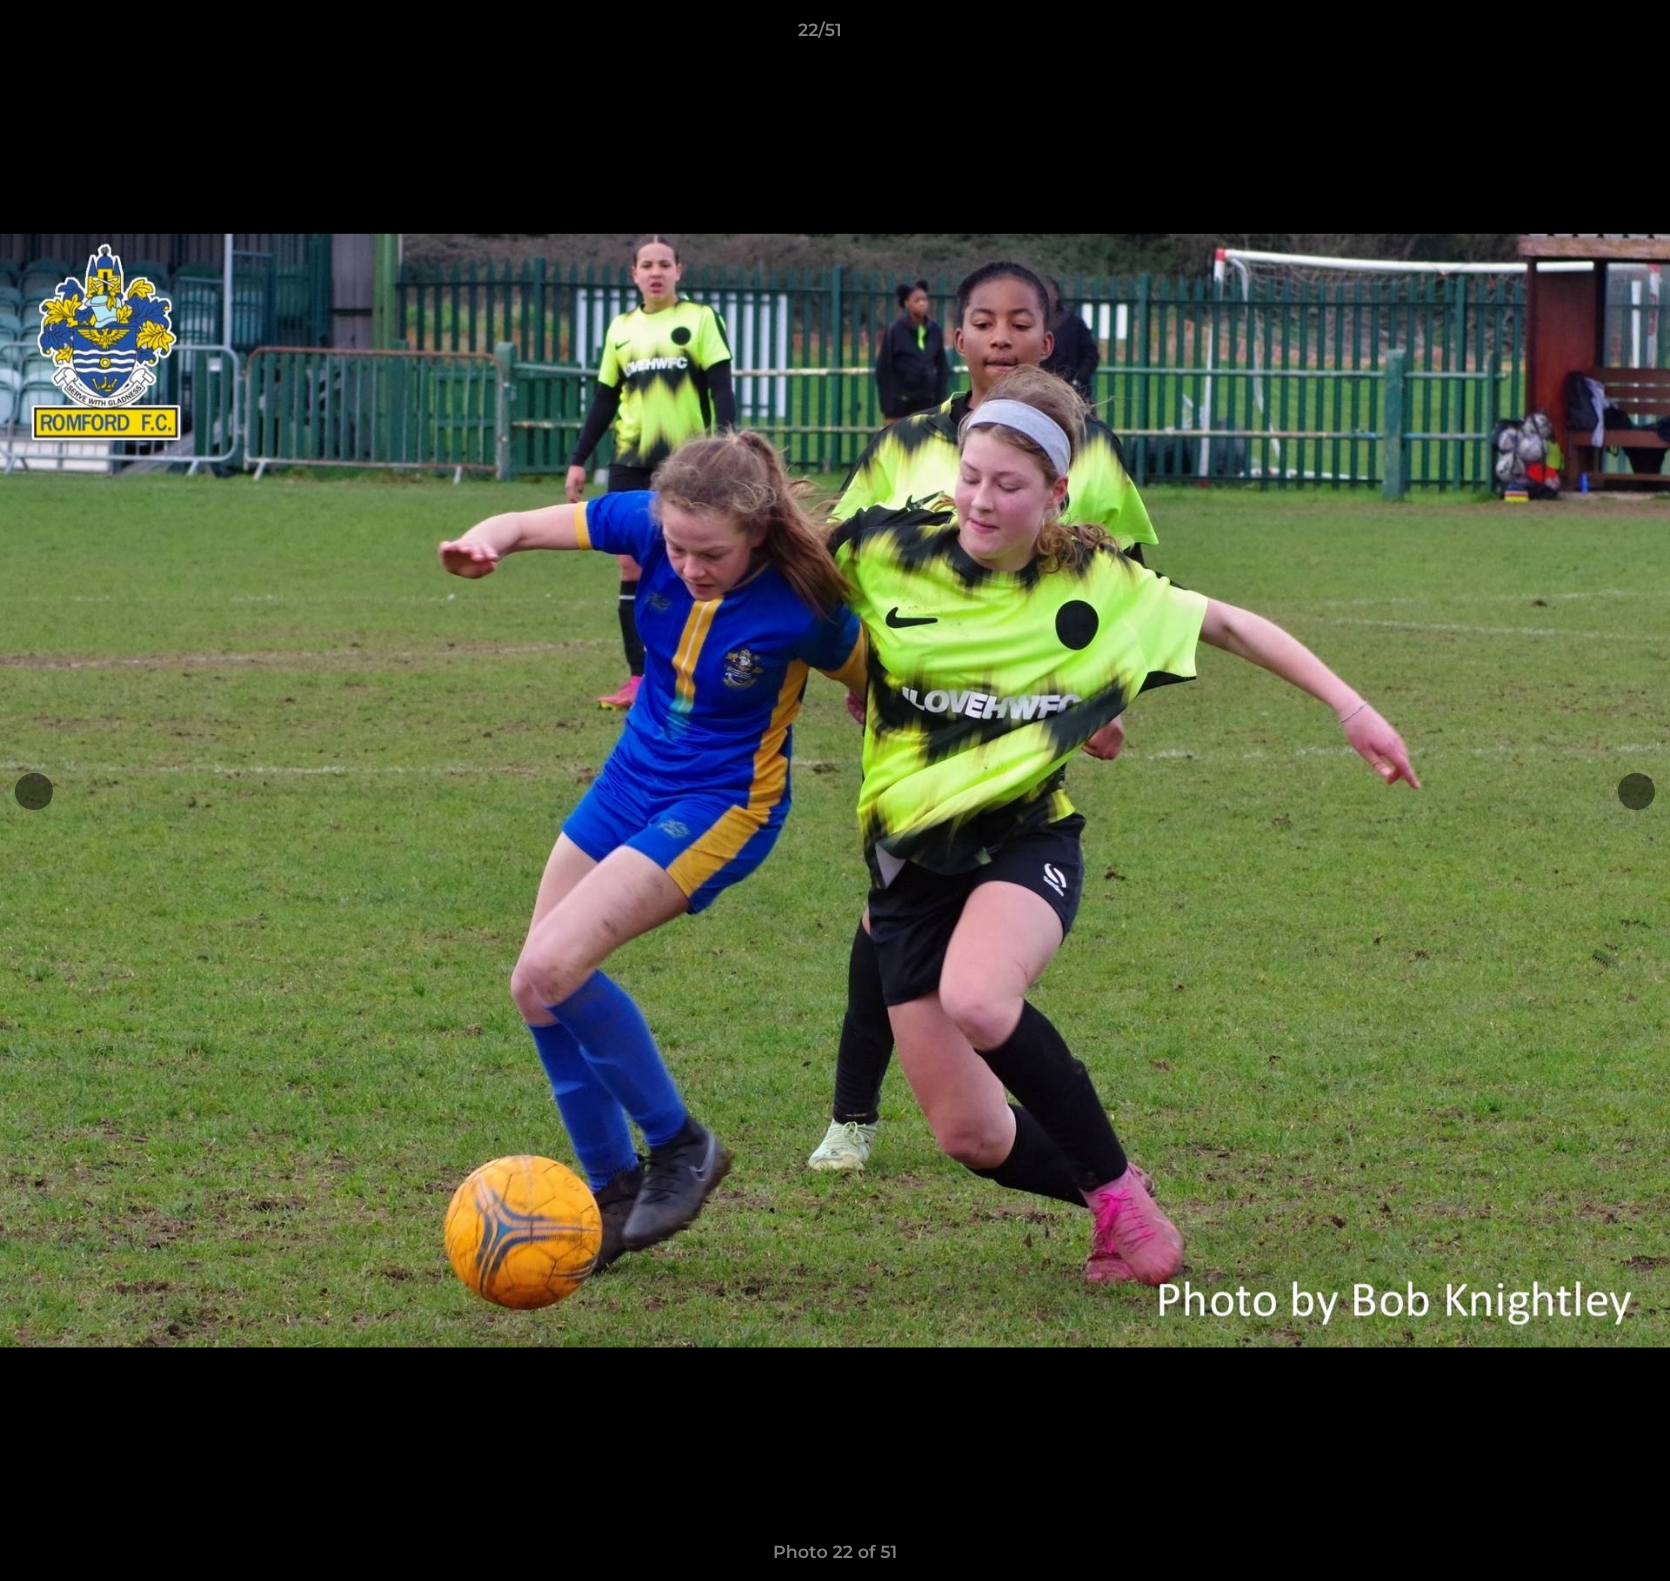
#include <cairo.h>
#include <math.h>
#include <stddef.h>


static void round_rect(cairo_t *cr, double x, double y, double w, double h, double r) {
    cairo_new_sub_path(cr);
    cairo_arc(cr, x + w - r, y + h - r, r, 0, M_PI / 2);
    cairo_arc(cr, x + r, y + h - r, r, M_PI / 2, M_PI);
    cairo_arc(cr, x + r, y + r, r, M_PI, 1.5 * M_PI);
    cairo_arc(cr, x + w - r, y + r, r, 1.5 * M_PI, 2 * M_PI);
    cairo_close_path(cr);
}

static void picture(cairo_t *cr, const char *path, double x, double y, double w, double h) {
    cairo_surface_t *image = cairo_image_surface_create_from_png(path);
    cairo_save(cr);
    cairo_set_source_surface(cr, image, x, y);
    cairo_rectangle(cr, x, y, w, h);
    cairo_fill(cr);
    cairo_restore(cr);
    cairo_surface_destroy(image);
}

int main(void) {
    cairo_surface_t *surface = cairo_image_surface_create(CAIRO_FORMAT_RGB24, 1670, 1581);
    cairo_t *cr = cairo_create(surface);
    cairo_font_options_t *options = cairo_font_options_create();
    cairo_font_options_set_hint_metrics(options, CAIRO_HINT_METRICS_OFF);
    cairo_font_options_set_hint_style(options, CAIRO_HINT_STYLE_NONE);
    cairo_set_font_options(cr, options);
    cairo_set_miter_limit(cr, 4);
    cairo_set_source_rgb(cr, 0, 0, 0);
    cairo_paint(cr);
    cairo_select_font_face(cr, "Montserrat SemiBold", CAIRO_FONT_SLANT_NORMAL, CAIRO_FONT_WEIGHT_NORMAL);
    cairo_set_font_size(cr, 17.5);
    cairo_set_source_rgb(cr, 0.502, 0.502, 0.502);
    cairo_move_to(cr, 798, 36);
    cairo_show_text(cr, "22/51");
    picture(cr, "img1.png", 0, 233, 1670, 1116);
    cairo_set_source_rgba(cr, 0, 0, 0, 0.5);
    round_rect(cr, 15, 773, 38, 37, 18.5);
    cairo_fill(cr);
    cairo_arc(cr, 1636.5, 791.5, 18.5, 0, 2 * M_PI);
    cairo_fill(cr);
    cairo_set_source_rgb(cr, 0.502, 0.502, 0.502);
    cairo_move_to(cr, 773, 1558);
    cairo_show_text(cr, "Photo 22 of 51");
    cairo_surface_write_to_png(surface, "page.png");
    cairo_font_options_destroy(options);
    cairo_destroy(cr);
    cairo_surface_destroy(surface);
    return 0;
}
